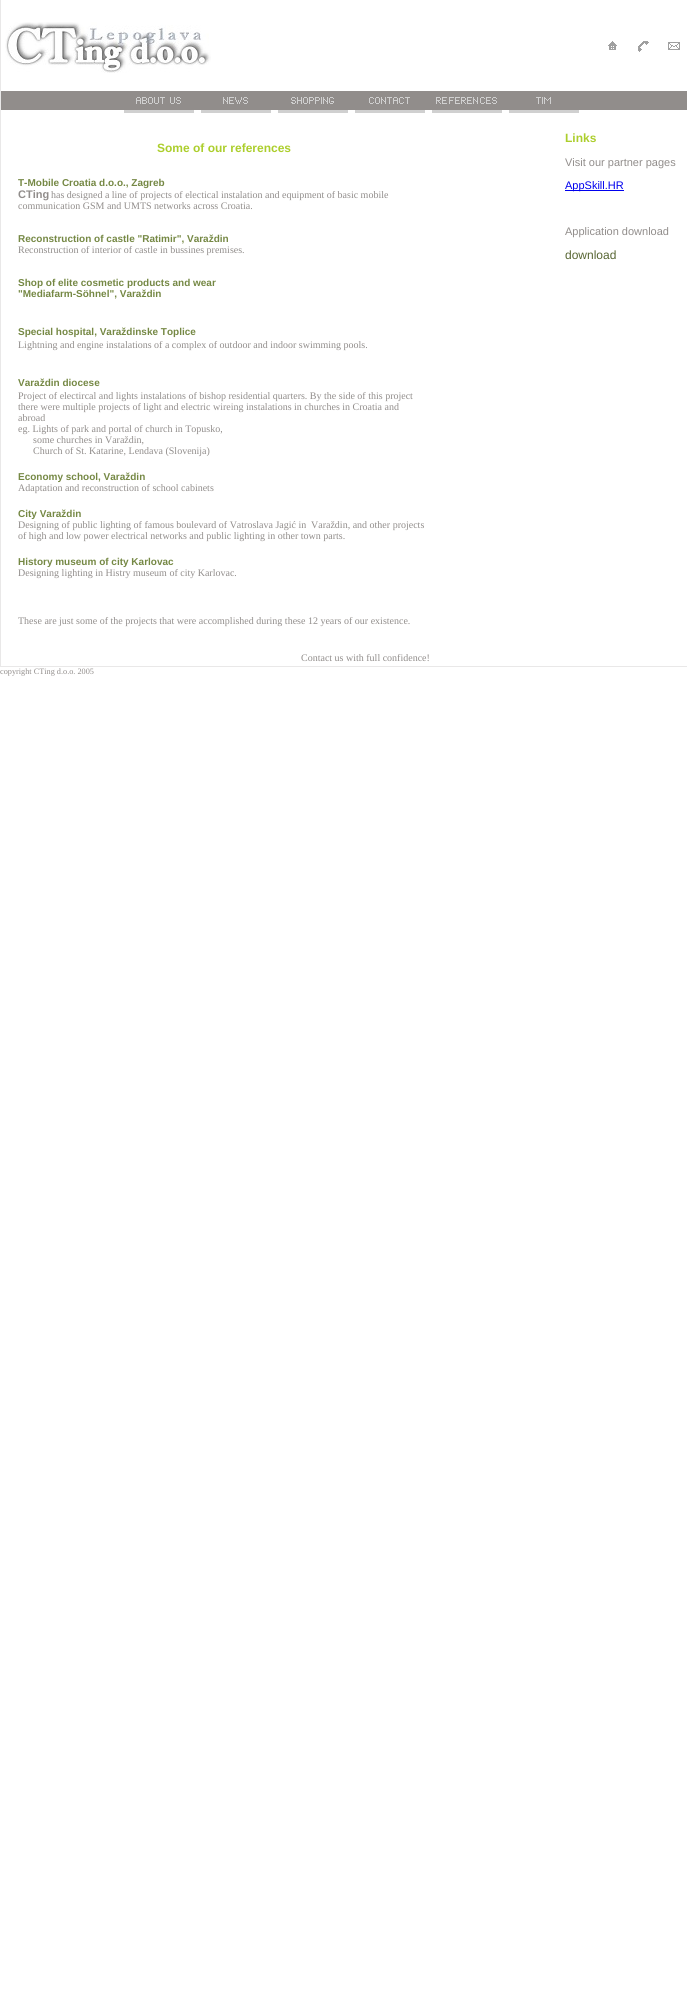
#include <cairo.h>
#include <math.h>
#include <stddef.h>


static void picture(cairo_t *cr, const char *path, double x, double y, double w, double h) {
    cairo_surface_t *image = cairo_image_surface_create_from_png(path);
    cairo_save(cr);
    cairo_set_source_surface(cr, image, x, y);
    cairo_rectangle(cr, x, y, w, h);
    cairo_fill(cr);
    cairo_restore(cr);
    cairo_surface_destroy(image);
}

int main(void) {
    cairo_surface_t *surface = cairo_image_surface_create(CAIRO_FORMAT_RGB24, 687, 2004);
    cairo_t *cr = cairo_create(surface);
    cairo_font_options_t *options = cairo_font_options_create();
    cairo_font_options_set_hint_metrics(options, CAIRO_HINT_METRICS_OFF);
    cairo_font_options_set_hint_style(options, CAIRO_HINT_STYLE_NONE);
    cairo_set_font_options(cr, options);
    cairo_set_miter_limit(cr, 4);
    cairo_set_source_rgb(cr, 1, 1, 1);
    cairo_paint(cr);
    cairo_set_source_rgb(cr, 0.914, 0.91, 0.91);
    cairo_rectangle(cr, 0, 0, 1, 666);
    cairo_fill(cr);
    picture(cr, "img1.png", 5, 22, 206, 51);
    picture(cr, "img2.png", 608, 41, 72, 11);
    cairo_set_source_rgb(cr, 0.569, 0.553, 0.545);
    cairo_rectangle(cr, 1, 91, 686, 19);
    cairo_fill(cr);
    cairo_set_source_rgb(cr, 0.816, 0.816, 0.816);
    cairo_rectangle(cr, 124, 97, 70, 16);
    cairo_fill(cr);
    picture(cr, "img3.png", 124, 96, 70, 14);
    cairo_rectangle(cr, 201, 97, 70, 16);
    cairo_fill(cr);
    picture(cr, "img4.png", 201, 96, 70, 14);
    cairo_rectangle(cr, 278, 97, 70, 16);
    cairo_fill(cr);
    picture(cr, "img5.png", 278, 96, 70, 14);
    cairo_rectangle(cr, 355, 97, 70, 16);
    cairo_fill(cr);
    picture(cr, "img6.png", 355, 96, 70, 14);
    cairo_rectangle(cr, 432, 97, 70, 16);
    cairo_fill(cr);
    picture(cr, "img7.png", 432, 96, 70, 14);
    cairo_rectangle(cr, 509, 97, 70, 16);
    cairo_fill(cr);
    picture(cr, "img8.png", 509, 96, 70, 14);
    cairo_select_font_face(cr, "Liberation Sans", CAIRO_FONT_SLANT_NORMAL, CAIRO_FONT_WEIGHT_BOLD);
    cairo_set_font_size(cr, 12);
    cairo_set_source_rgb(cr, 0.675, 0.808, 0.173);
    cairo_move_to(cr, 157, 152);
    cairo_show_text(cr, "Some of our references");
    cairo_set_font_size(cr, 10);
    cairo_set_source_rgb(cr, 0.459, 0.533, 0.267);
    cairo_move_to(cr, 18, 186);
    cairo_show_text(cr, "T-Mobile Croatia d.o.o., Zagreb");
    cairo_set_font_size(cr, 11);
    cairo_set_source_rgb(cr, 0.569, 0.553, 0.545);
    cairo_move_to(cr, 18, 198);
    cairo_show_text(cr, "CTing");
    cairo_select_font_face(cr, "Liberation Serif", CAIRO_FONT_SLANT_NORMAL, CAIRO_FONT_WEIGHT_NORMAL);
    cairo_set_font_size(cr, 10);
    cairo_move_to(cr, 51, 198);
    cairo_show_text(cr, "has designed a line of projects of electical instalation and equipment of basic mobile");
    cairo_move_to(cr, 18, 209);
    cairo_show_text(cr, "communication GSM and UMTS networks across Croatia.");
    cairo_select_font_face(cr, "Liberation Sans", CAIRO_FONT_SLANT_NORMAL, CAIRO_FONT_WEIGHT_BOLD);
    cairo_set_source_rgb(cr, 0.459, 0.533, 0.267);
    cairo_move_to(cr, 18, 242);
    cairo_show_text(cr, "Reconstruction of castle \"Ratimir\", Varaždin");
    cairo_select_font_face(cr, "Liberation Serif", CAIRO_FONT_SLANT_NORMAL, CAIRO_FONT_WEIGHT_NORMAL);
    cairo_set_source_rgb(cr, 0.569, 0.553, 0.545);
    cairo_move_to(cr, 18, 253);
    cairo_show_text(cr, "Reconstruction of interior of castle in bussines premises.");
    cairo_select_font_face(cr, "Liberation Sans", CAIRO_FONT_SLANT_NORMAL, CAIRO_FONT_WEIGHT_BOLD);
    cairo_set_source_rgb(cr, 0.459, 0.533, 0.267);
    cairo_move_to(cr, 18, 286);
    cairo_show_text(cr, "Shop of elite cosmetic products and wear");
    cairo_move_to(cr, 18, 297);
    cairo_show_text(cr, "\"Mediafarm-Söhnel\", Varaždin");
    cairo_move_to(cr, 18, 335);
    cairo_show_text(cr, "Special hospital, Varaždinske Toplice");
    cairo_select_font_face(cr, "Liberation Serif", CAIRO_FONT_SLANT_NORMAL, CAIRO_FONT_WEIGHT_NORMAL);
    cairo_set_source_rgb(cr, 0.569, 0.553, 0.545);
    cairo_move_to(cr, 18, 348);
    cairo_show_text(cr, "Lightning and engine instalations of a complex of outdoor and indoor swimming pools.");
    cairo_select_font_face(cr, "Liberation Sans", CAIRO_FONT_SLANT_NORMAL, CAIRO_FONT_WEIGHT_BOLD);
    cairo_set_source_rgb(cr, 0.459, 0.533, 0.267);
    cairo_move_to(cr, 18, 386);
    cairo_show_text(cr, "Varaždin diocese");
    cairo_select_font_face(cr, "Liberation Serif", CAIRO_FONT_SLANT_NORMAL, CAIRO_FONT_WEIGHT_NORMAL);
    cairo_set_source_rgb(cr, 0.569, 0.553, 0.545);
    cairo_move_to(cr, 18, 399);
    cairo_show_text(cr, "Project of electircal and lights instalations of bishop residential quarters. By the side of this project");
    cairo_move_to(cr, 18, 410);
    cairo_show_text(cr, "there were multiple projects of light and electric wireing instalations in churches in Croatia and");
    cairo_move_to(cr, 18, 421);
    cairo_show_text(cr, "abroad");
    cairo_move_to(cr, 18, 432);
    cairo_show_text(cr, "eg. Lights of park and portal of church in Topusko,");
    cairo_move_to(cr, 33, 443);
    cairo_show_text(cr, "some churches in Varaždin,");
    cairo_move_to(cr, 33, 454);
    cairo_show_text(cr, "Church of St. Katarine, Lendava (Slovenija)");
    cairo_select_font_face(cr, "Liberation Sans", CAIRO_FONT_SLANT_NORMAL, CAIRO_FONT_WEIGHT_BOLD);
    cairo_set_source_rgb(cr, 0.459, 0.533, 0.267);
    cairo_move_to(cr, 18, 480);
    cairo_show_text(cr, "Economy school, Varaždin");
    cairo_select_font_face(cr, "Liberation Serif", CAIRO_FONT_SLANT_NORMAL, CAIRO_FONT_WEIGHT_NORMAL);
    cairo_set_source_rgb(cr, 0.569, 0.553, 0.545);
    cairo_move_to(cr, 18, 491);
    cairo_show_text(cr, "Adaptation and reconstruction of school cabinets");
    cairo_select_font_face(cr, "Liberation Sans", CAIRO_FONT_SLANT_NORMAL, CAIRO_FONT_WEIGHT_BOLD);
    cairo_set_source_rgb(cr, 0.459, 0.533, 0.267);
    cairo_move_to(cr, 18, 517);
    cairo_show_text(cr, "City Varaždin");
    cairo_select_font_face(cr, "Liberation Serif", CAIRO_FONT_SLANT_NORMAL, CAIRO_FONT_WEIGHT_NORMAL);
    cairo_set_source_rgb(cr, 0.569, 0.553, 0.545);
    cairo_move_to(cr, 18, 528);
    cairo_show_text(cr, "Designing of public lighting of famous boulevard of Vatroslava Jagić in");
    cairo_move_to(cr, 311, 528);
    cairo_show_text(cr, "Varaždin, and other projects");
    cairo_move_to(cr, 18, 539);
    cairo_show_text(cr, "of high and low power electrical networks and public lighting in other town parts.");
    cairo_select_font_face(cr, "Liberation Sans", CAIRO_FONT_SLANT_NORMAL, CAIRO_FONT_WEIGHT_BOLD);
    cairo_set_source_rgb(cr, 0.459, 0.533, 0.267);
    cairo_move_to(cr, 18, 565);
    cairo_show_text(cr, "History museum of city Karlovac");
    cairo_select_font_face(cr, "Liberation Serif", CAIRO_FONT_SLANT_NORMAL, CAIRO_FONT_WEIGHT_NORMAL);
    cairo_set_source_rgb(cr, 0.569, 0.553, 0.545);
    cairo_move_to(cr, 18, 576);
    cairo_show_text(cr, "Designing lighting in Histry museum of city Karlovac.");
    cairo_move_to(cr, 18, 624);
    cairo_show_text(cr, "These are just some of the projects that were accomplished during these 12 years of our existence.");
    cairo_move_to(cr, 301, 661);
    cairo_show_text(cr, "Contact us with full confidence!");
    cairo_select_font_face(cr, "Liberation Sans", CAIRO_FONT_SLANT_NORMAL, CAIRO_FONT_WEIGHT_BOLD);
    cairo_set_font_size(cr, 12);
    cairo_set_source_rgb(cr, 0.675, 0.808, 0.173);
    cairo_move_to(cr, 565, 142);
    cairo_show_text(cr, "Links");
    cairo_select_font_face(cr, "Liberation Sans", CAIRO_FONT_SLANT_NORMAL, CAIRO_FONT_WEIGHT_NORMAL);
    cairo_set_font_size(cr, 11);
    cairo_set_source_rgb(cr, 0.569, 0.553, 0.545);
    cairo_move_to(cr, 565, 166);
    cairo_show_text(cr, "Visit our partner pages");
    cairo_set_source_rgb(cr, 0, 0, 0.933);
    cairo_rectangle(cr, 565, 190, 59, 1);
    cairo_fill(cr);
    cairo_move_to(cr, 565, 189);
    cairo_show_text(cr, "AppSkill.HR");
    cairo_set_source_rgb(cr, 0.569, 0.553, 0.545);
    cairo_move_to(cr, 565, 235);
    cairo_show_text(cr, "Application download");
    cairo_set_font_size(cr, 12);
    cairo_set_source_rgb(cr, 0.341, 0.396, 0.196);
    cairo_move_to(cr, 565, 259);
    cairo_show_text(cr, "download");
    cairo_set_source_rgb(cr, 0.914, 0.91, 0.91);
    cairo_rectangle(cr, 0, 666, 687, 1);
    cairo_fill(cr);
    cairo_select_font_face(cr, "Liberation Serif", CAIRO_FONT_SLANT_NORMAL, CAIRO_FONT_WEIGHT_NORMAL);
    cairo_set_font_size(cr, 8.25);
    cairo_set_source_rgb(cr, 0.569, 0.553, 0.545);
    cairo_move_to(cr, 0, 674);
    cairo_show_text(cr, "copyright CTing d.o.o. 2005");
    cairo_surface_write_to_png(surface, "page.png");
    cairo_font_options_destroy(options);
    cairo_destroy(cr);
    cairo_surface_destroy(surface);
    return 0;
}
